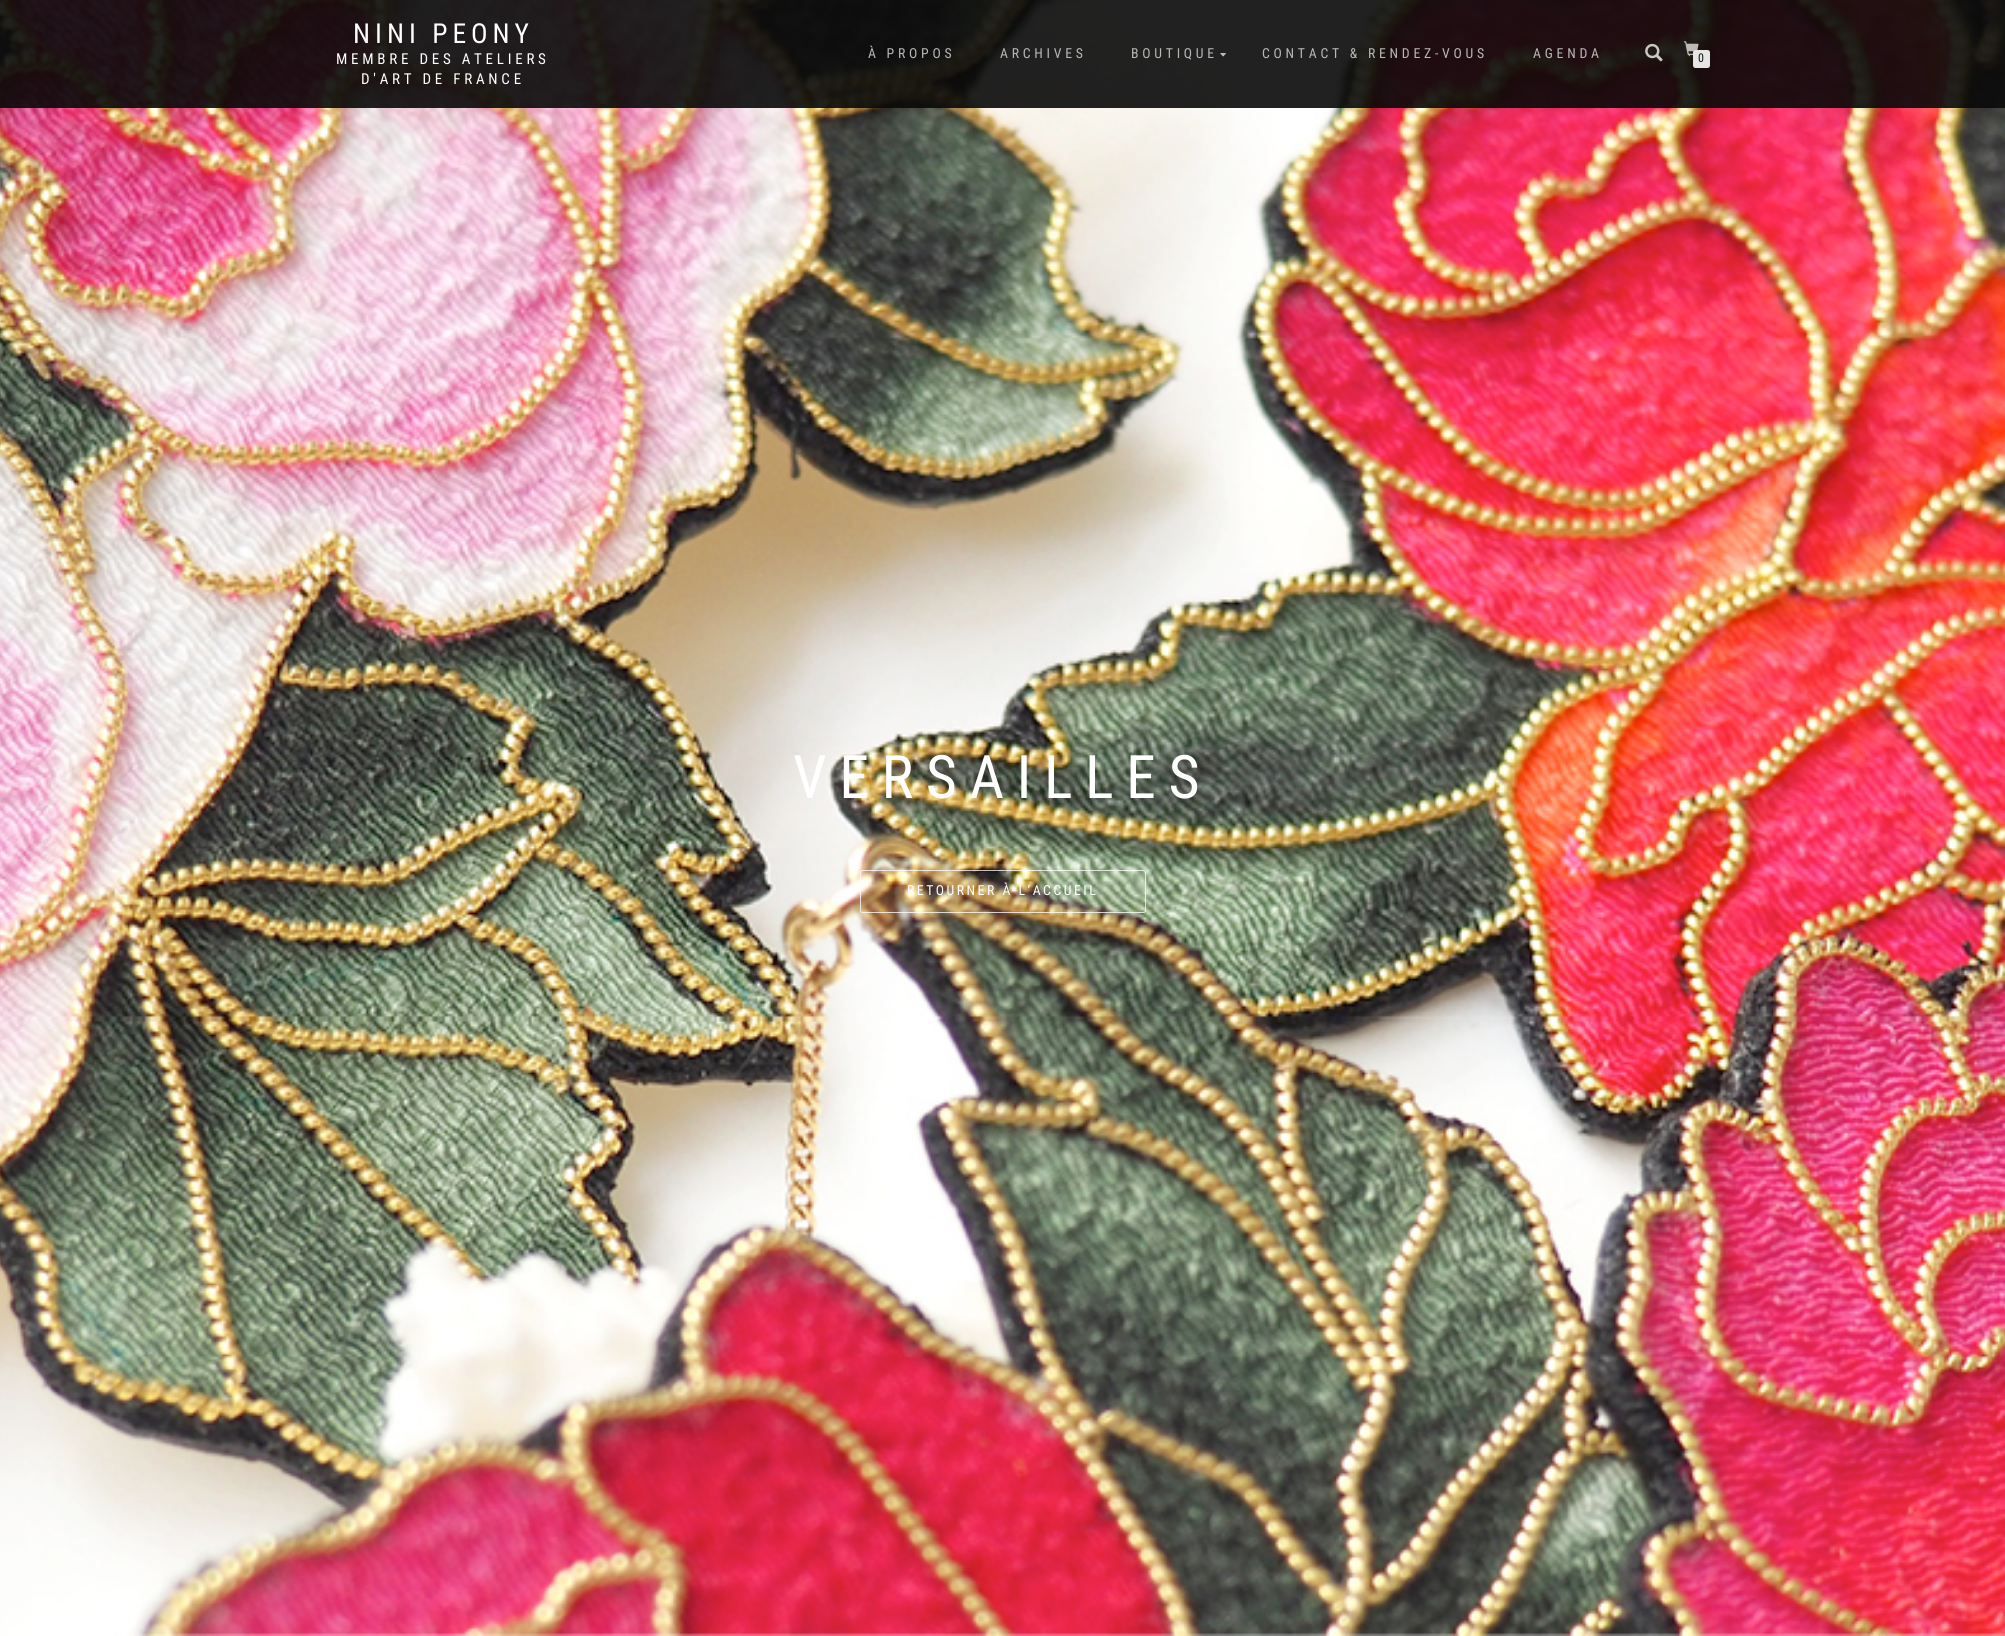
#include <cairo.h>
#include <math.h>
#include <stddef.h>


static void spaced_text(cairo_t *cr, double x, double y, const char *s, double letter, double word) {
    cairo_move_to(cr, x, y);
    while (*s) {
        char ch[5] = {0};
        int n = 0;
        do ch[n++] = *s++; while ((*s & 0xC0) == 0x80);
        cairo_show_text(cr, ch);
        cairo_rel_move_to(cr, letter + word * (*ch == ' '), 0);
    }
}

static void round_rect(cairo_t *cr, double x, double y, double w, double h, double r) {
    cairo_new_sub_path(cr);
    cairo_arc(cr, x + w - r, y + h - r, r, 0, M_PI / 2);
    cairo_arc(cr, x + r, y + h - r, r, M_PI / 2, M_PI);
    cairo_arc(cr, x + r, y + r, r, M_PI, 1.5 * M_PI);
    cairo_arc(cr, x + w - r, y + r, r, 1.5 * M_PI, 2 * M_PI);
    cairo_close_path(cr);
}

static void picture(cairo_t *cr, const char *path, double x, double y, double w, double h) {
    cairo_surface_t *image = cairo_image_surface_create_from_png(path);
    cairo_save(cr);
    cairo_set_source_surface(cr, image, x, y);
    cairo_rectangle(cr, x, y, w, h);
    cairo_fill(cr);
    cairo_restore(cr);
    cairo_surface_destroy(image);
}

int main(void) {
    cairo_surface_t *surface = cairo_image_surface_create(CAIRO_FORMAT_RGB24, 2005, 1636);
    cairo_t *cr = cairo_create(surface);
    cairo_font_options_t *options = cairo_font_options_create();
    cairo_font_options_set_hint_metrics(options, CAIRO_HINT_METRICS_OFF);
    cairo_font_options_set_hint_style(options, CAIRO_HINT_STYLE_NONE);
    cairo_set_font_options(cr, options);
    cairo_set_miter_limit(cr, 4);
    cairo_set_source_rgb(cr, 1, 1, 1);
    cairo_paint(cr);
    picture(cr, "img4.png", 0, 0, 2005, 1636);
    cairo_set_source_rgba(cr, 0.039, 0.039, 0.039, 0.9);
    cairo_rectangle(cr, 0, 0, 2005, 108);
    cairo_fill(cr);
    cairo_select_font_face(cr, "Roboto Condensed", CAIRO_FONT_SLANT_NORMAL, CAIRO_FONT_WEIGHT_NORMAL);
    cairo_set_font_size(cr, 27.5);
    cairo_set_source_rgb(cr, 1, 1, 1);
    spaced_text(cr, 353, 43, "NINI PEONY", 5, 0);
    cairo_set_font_size(cr, 15);
    spaced_text(cr, 336, 64, "MEMBRE DES ATELIERS", 3.75, 0);
    spaced_text(cr, 361, 84, "D'ART DE FRANCE", 3.75, 0);
    cairo_set_font_size(cr, 13.75);
    cairo_set_source_rgb(cr, 0.722, 0.722, 0.722);
    spaced_text(cr, 868, 58, "À PROPOS", 3.75, 0);
    spaced_text(cr, 1000, 58, "ARCHIVES", 3.75, 0);
    spaced_text(cr, 1131, 58, "BOUTIQUE", 3.75, 0);
    picture(cr, "img1.png", 1220, 53, 6, 4);
    spaced_text(cr, 1262, 58, "CONTACT & RENDEZ-VOUS", 3.75, 0);
    spaced_text(cr, 1533, 58, "AGENDA", 3.75, 0);
    picture(cr, "img2.png", 1645, 43, 18, 19);
    picture(cr, "img3.png", 1683, 41, 16, 16);
    cairo_set_source_rgb(cr, 0.898, 0.898, 0.898);
    round_rect(cr, 1693, 50, 17, 18, 2.5);
    cairo_fill(cr);
    cairo_set_font_size(cr, 12);
    cairo_set_source_rgb(cr, 0.067, 0.067, 0.067);
    cairo_move_to(cr, 1698, 62);
    cairo_show_text(cr, "0");
    cairo_set_font_size(cr, 60);
    cairo_set_source_rgb(cr, 1, 1, 1);
    spaced_text(cr, 793, 798, "VERSAILLES", 12.5, 0);
    round_rect(cr, 860.5, 870.5, 285, 42, 2);
    cairo_set_source_rgba(cr, 1, 1, 1, 0.75);
    cairo_set_line_width(cr, 1);
    cairo_stroke(cr);
    cairo_set_font_size(cr, 13.75);
    cairo_set_source_rgb(cr, 1, 1, 1);
    spaced_text(cr, 907, 895, "RETOURNER À L’ACCUEIL", 2.5, 0);
    cairo_surface_write_to_png(surface, "page.png");
    cairo_font_options_destroy(options);
    cairo_destroy(cr);
    cairo_surface_destroy(surface);
    return 0;
}
